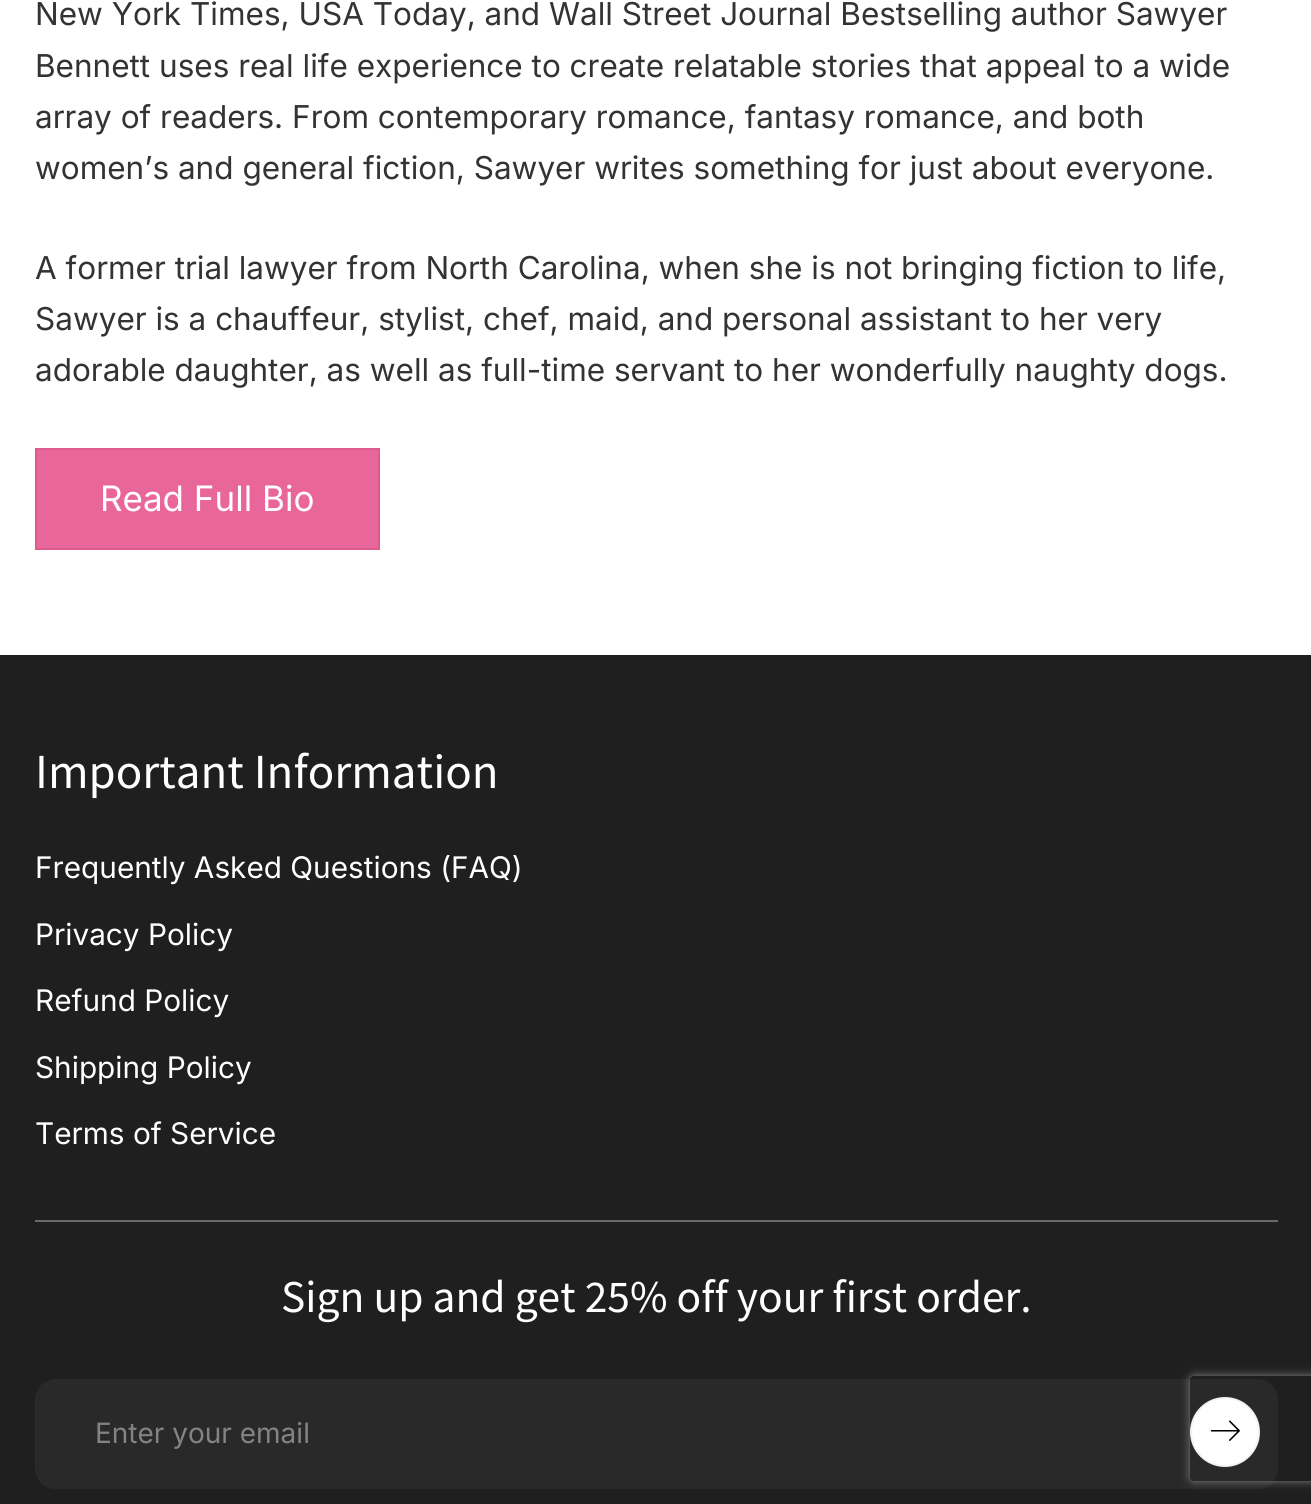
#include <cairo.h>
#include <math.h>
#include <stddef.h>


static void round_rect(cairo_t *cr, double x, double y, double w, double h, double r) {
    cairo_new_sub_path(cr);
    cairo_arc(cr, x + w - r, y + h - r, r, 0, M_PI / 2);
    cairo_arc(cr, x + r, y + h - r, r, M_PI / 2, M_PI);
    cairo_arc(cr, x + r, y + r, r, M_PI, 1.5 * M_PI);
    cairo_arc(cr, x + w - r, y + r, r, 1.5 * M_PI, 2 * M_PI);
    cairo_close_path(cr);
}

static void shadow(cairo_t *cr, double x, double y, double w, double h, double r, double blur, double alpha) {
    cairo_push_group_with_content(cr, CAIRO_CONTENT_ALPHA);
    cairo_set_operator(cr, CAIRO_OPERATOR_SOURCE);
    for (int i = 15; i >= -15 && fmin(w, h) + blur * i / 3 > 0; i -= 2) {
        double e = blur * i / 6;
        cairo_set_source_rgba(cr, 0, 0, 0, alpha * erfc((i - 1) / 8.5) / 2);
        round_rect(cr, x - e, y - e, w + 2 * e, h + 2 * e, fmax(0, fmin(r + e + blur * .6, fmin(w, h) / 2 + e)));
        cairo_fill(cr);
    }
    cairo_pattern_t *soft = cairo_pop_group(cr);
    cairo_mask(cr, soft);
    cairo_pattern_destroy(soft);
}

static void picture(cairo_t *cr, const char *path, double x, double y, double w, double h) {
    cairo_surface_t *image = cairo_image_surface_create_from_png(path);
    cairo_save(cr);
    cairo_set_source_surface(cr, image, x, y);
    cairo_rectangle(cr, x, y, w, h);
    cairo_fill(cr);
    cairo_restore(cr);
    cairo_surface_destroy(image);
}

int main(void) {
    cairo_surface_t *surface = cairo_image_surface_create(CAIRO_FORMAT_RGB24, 1311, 1504);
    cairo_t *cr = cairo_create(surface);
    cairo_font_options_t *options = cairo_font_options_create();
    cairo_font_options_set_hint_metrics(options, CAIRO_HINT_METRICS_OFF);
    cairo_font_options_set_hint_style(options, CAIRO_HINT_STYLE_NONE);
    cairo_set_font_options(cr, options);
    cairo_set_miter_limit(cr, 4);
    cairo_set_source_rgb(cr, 1, 1, 1);
    cairo_paint(cr);
    cairo_select_font_face(cr, "Inter", CAIRO_FONT_SLANT_NORMAL, CAIRO_FONT_WEIGHT_NORMAL);
    cairo_set_font_size(cr, 31.5);
    cairo_set_source_rgb(cr, 0.2, 0.2, 0.2);
    cairo_move_to(cr, 35, 25);
    cairo_show_text(cr, "New York Times, USA Today, and Wall Street Journal Bestselling author Sawyer");
    cairo_move_to(cr, 35, 77);
    cairo_show_text(cr, "Bennett uses real life experience to create relatable stories that appeal to a wide");
    cairo_move_to(cr, 35, 128);
    cairo_show_text(cr, "array of readers. From contemporary romance, fantasy romance, and both");
    cairo_move_to(cr, 35, 179);
    cairo_show_text(cr, "women’s and general fiction, Sawyer writes something for just about everyone.");
    cairo_move_to(cr, 35, 279);
    cairo_show_text(cr, "A former trial lawyer from North Carolina, when she is not bringing fiction to life,");
    cairo_move_to(cr, 35, 330);
    cairo_show_text(cr, "Sawyer is a chauffeur, stylist, chef, maid, and personal assistant to her very");
    cairo_move_to(cr, 35, 381);
    cairo_show_text(cr, "adorable daughter, as well as full-time servant to her wonderfully naughty dogs.");
    cairo_set_source_rgb(cr, 0.914, 0.4, 0.608);
    cairo_rectangle(cr, 36, 449, 343, 100);
    cairo_fill_preserve(cr);
    cairo_set_source_rgb(cr, 0.867, 0.353, 0.561);
    cairo_stroke(cr);
    cairo_set_font_size(cr, 35);
    cairo_set_source_rgb(cr, 1, 1, 1);
    cairo_move_to(cr, 100, 511);
    cairo_show_text(cr, "Read Full Bio");
    cairo_set_source_rgb(cr, 0.122, 0.122, 0.122);
    cairo_rectangle(cr, 0, 655, 1311, 849);
    cairo_fill(cr);
    cairo_select_font_face(cr, "Source Sans Pro", CAIRO_FONT_SLANT_NORMAL, CAIRO_FONT_WEIGHT_NORMAL);
    cairo_set_font_size(cr, 49);
    cairo_set_source_rgb(cr, 1, 1, 1);
    cairo_move_to(cr, 35, 788);
    cairo_show_text(cr, "Important Information");
    cairo_select_font_face(cr, "Inter", CAIRO_FONT_SLANT_NORMAL, CAIRO_FONT_WEIGHT_NORMAL);
    cairo_set_font_size(cr, 29.75);
    cairo_move_to(cr, 35, 878);
    cairo_show_text(cr, "Frequently Asked Questions (FAQ)");
    cairo_move_to(cr, 35, 945);
    cairo_show_text(cr, "Privacy Policy");
    cairo_move_to(cr, 35, 1011);
    cairo_show_text(cr, "Refund Policy");
    cairo_move_to(cr, 35, 1078);
    cairo_show_text(cr, "Shipping Policy");
    cairo_move_to(cr, 35, 1144);
    cairo_show_text(cr, "Terms of Service");
    cairo_set_source_rgb(cr, 0.412, 0.412, 0.412);
    cairo_rectangle(cr, 35, 1220, 1243, 2);
    cairo_fill(cr);
    cairo_select_font_face(cr, "Source Sans Pro", CAIRO_FONT_SLANT_NORMAL, CAIRO_FONT_WEIGHT_NORMAL);
    cairo_set_font_size(cr, 45.5);
    cairo_set_source_rgb(cr, 1, 1, 1);
    cairo_move_to(cr, 281, 1312);
    cairo_show_text(cr, "Sign up and get 25% off your first order.");
    cairo_set_source_rgb(cr, 0.161, 0.161, 0.161);
    round_rect(cr, 35, 1379, 1243, 110, 21);
    cairo_fill(cr);
    cairo_select_font_face(cr, "Inter", CAIRO_FONT_SLANT_NORMAL, CAIRO_FONT_WEIGHT_NORMAL);
    cairo_set_font_size(cr, 28);
    cairo_set_source_rgb(cr, 0.514, 0.514, 0.514);
    cairo_move_to(cr, 95, 1443);
    cairo_show_text(cr, "Enter your email");
    cairo_set_source_rgb(cr, 1, 1, 1);
    cairo_new_path(cr);
    cairo_arc(cr, 1225, 1432, 34, 0, 2 * M_PI);
    cairo_fill_preserve(cr);
    cairo_set_source_rgb(cr, 0.953, 0.953, 0.953);
    cairo_stroke(cr);
    picture(cr, "img1.png", 1210, 1420, 30, 21);
    cairo_save(cr);
    cairo_set_fill_rule(cr, CAIRO_FILL_RULE_EVEN_ODD);
    cairo_new_path(cr);
    cairo_move_to(cr, 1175, 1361);
    cairo_line_to(cr, 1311, 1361);
    cairo_line_to(cr, 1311, 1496);
    cairo_line_to(cr, 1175, 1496);
    cairo_close_path(cr);
    cairo_move_to(cr, 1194, 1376);
    cairo_line_to(cr, 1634, 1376);
    cairo_curve_to(cr, 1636, 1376, 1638, 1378, 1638, 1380);
    cairo_line_to(cr, 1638, 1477);
    cairo_curve_to(cr, 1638, 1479, 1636, 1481, 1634, 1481);
    cairo_line_to(cr, 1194, 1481);
    cairo_curve_to(cr, 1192, 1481, 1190, 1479, 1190, 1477);
    cairo_line_to(cr, 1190, 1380);
    cairo_curve_to(cr, 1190, 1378, 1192, 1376, 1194, 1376);
    cairo_close_path(cr);
    cairo_clip(cr);
    cairo_set_source_rgb(cr, 0.502, 0.502, 0.502);
    shadow(cr, 1190, 1376, 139, 105, 4, 4.5, 1);
    cairo_restore(cr);
    cairo_surface_write_to_png(surface, "page.png");
    cairo_font_options_destroy(options);
    cairo_destroy(cr);
    cairo_surface_destroy(surface);
    return 0;
}
